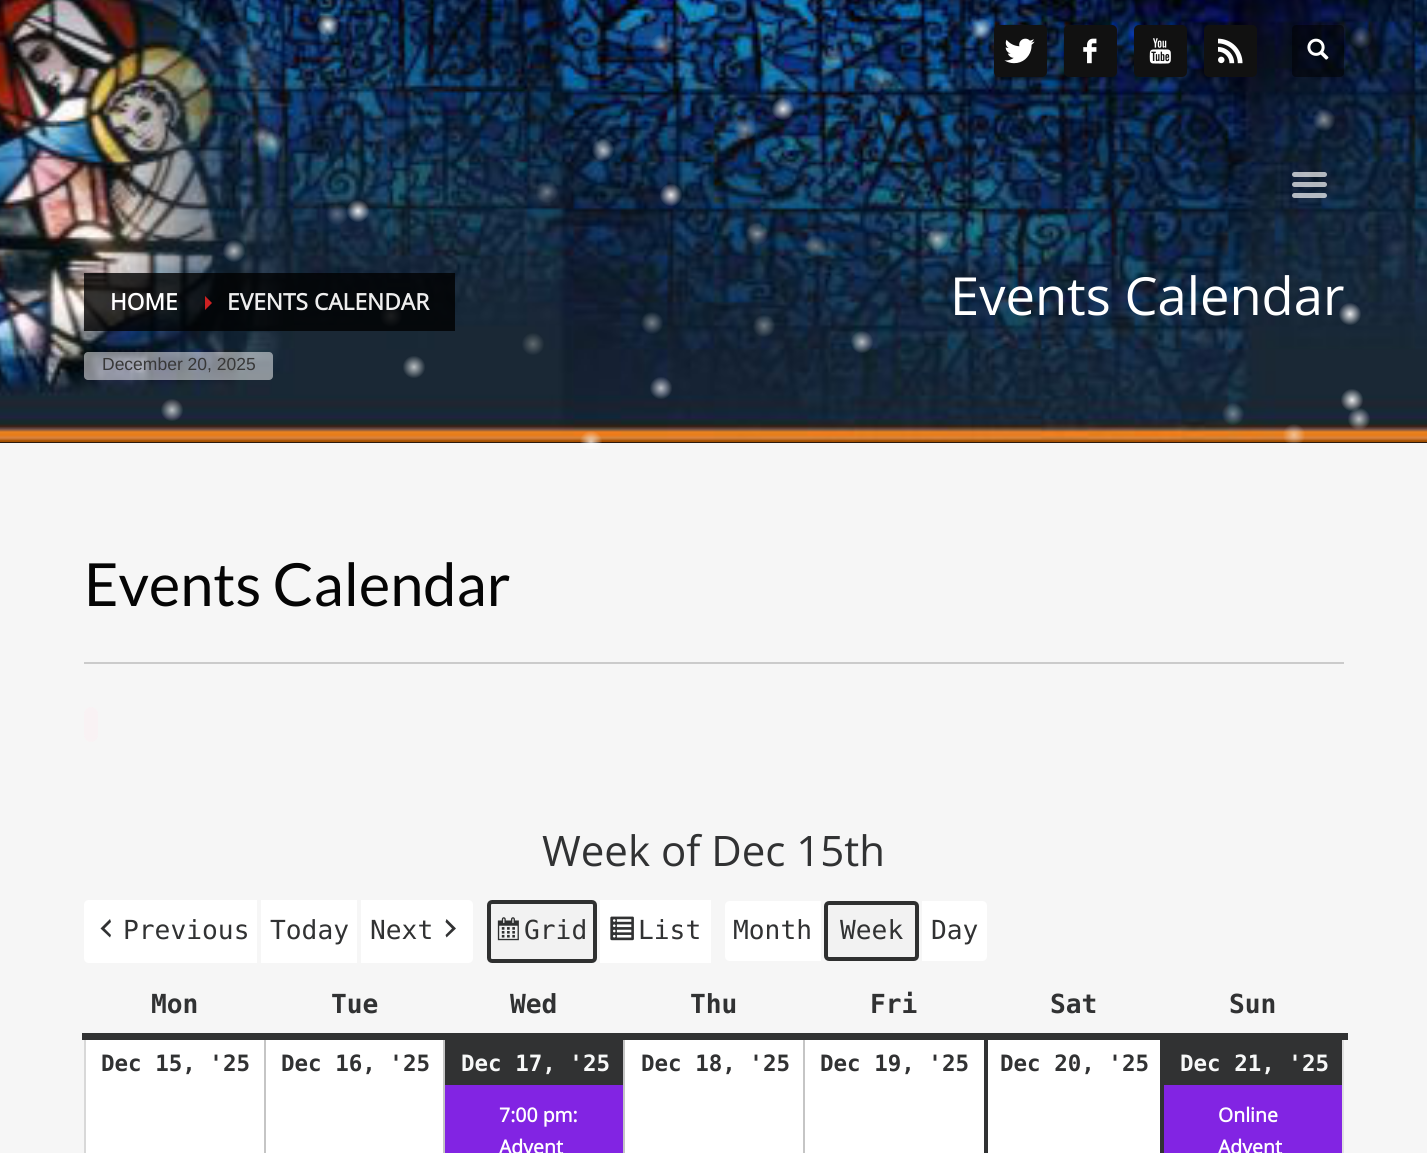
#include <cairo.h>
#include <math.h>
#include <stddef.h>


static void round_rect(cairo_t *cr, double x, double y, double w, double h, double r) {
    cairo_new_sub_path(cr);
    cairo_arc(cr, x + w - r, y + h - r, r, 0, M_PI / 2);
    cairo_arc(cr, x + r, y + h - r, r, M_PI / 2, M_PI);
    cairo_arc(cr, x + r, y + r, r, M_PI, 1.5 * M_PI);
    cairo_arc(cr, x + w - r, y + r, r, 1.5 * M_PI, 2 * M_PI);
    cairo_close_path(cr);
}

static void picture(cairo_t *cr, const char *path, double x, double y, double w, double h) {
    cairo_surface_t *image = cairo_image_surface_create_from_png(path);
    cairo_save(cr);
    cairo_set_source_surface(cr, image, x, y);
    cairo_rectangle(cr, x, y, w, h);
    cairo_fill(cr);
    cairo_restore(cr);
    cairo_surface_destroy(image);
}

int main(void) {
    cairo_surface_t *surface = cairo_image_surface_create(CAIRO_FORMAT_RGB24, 1427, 1153);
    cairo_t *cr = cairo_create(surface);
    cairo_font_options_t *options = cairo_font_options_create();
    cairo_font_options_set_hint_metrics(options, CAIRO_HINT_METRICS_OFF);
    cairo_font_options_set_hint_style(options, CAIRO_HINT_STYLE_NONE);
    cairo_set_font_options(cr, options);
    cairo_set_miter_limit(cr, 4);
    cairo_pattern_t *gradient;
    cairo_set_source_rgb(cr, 0.961, 0.961, 0.961);
    cairo_paint(cr);
    cairo_set_source_rgb(cr, 0.847, 0.847, 0.847);
    cairo_rectangle(cr, 84, 1036, 2, 117);
    cairo_fill(cr);
    gradient = cairo_pattern_create_linear(714, -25, 714, 443);
    cairo_pattern_add_color_stop_rgba(gradient, 0, 0.024, 0.051, 0.133, 1);
    cairo_pattern_add_color_stop_rgba(gradient, 1, 0.012, 0.027, 0.067, 1);
    cairo_set_source(cr, gradient);
    cairo_pattern_destroy(gradient);
    cairo_rectangle(cr, 0, 442, 1427, 1);
    cairo_fill(cr);
    picture(cr, "img6.png", 0, 0, 1427, 443);
    cairo_set_source_rgb(cr, 0.067, 0.067, 0.067);
    round_rect(cr, 994, 25, 53, 52, 5);
    cairo_fill(cr);
    picture(cr, "img1.png", 1004, 38, 31, 26);
    round_rect(cr, 1064, 25, 53, 52, 5);
    cairo_fill(cr);
    picture(cr, "img2.png", 1083, 38, 14, 26);
    round_rect(cr, 1134, 25, 53, 52, 5);
    cairo_fill(cr);
    picture(cr, "img3.png", 1149, 38, 22, 26);
    round_rect(cr, 1204, 25, 53, 52, 5);
    cairo_fill(cr);
    picture(cr, "img4.png", 1218, 38, 25, 26);
    cairo_set_source_rgba(cr, 0, 0, 0, 0.5);
    round_rect(cr, 1292, 25, 52, 52, 4);
    cairo_fill(cr);
    picture(cr, "img5.png", 1307, 38, 22, 22);
    cairo_set_source_rgba(cr, 1, 1, 1, 0.68);
    round_rect(cr, 1292, 172, 35, 5, 2.5);
    cairo_fill(cr);
    round_rect(cr, 1292, 182, 35, 5, 2.5);
    cairo_fill(cr);
    round_rect(cr, 1292, 193, 35, 5, 2.5);
    cairo_fill(cr);
    cairo_set_source_rgba(cr, 0, 0, 0, 0.8);
    cairo_rectangle(cr, 84, 273, 103, 58);
    cairo_fill(cr);
    cairo_select_font_face(cr, "Open Sans", CAIRO_FONT_SLANT_NORMAL, CAIRO_FONT_WEIGHT_BOLD);
    cairo_set_font_size(cr, 22.75);
    cairo_set_source_rgb(cr, 1, 1, 1);
    cairo_move_to(cr, 110, 310);
    cairo_show_text(cr, "HOME");
    cairo_set_source_rgba(cr, 0, 0, 0, 0.8);
    cairo_rectangle(cr, 187, 273, 268, 58);
    cairo_fill(cr);
    cairo_set_source_rgb(cr, 0.804, 0.129, 0.133);
    cairo_new_path(cr);
    cairo_move_to(cr, 205, 310);
    cairo_line_to(cr, 205, 296);
    cairo_line_to(cr, 212, 303);
    cairo_close_path(cr);
    cairo_fill(cr);
    cairo_set_source_rgb(cr, 0.933, 0.933, 0.933);
    cairo_move_to(cr, 227, 310);
    cairo_show_text(cr, "EVENTS CALENDAR");
    cairo_set_source_rgba(cr, 1, 1, 1, 0.5);
    round_rect(cr, 84, 352, 189, 28, 4);
    cairo_fill(cr);
    cairo_select_font_face(cr, "Liberation Sans", CAIRO_FONT_SLANT_NORMAL, CAIRO_FONT_WEIGHT_NORMAL);
    cairo_set_font_size(cr, 17.5);
    cairo_set_source_rgb(cr, 0.22, 0.22, 0.22);
    cairo_move_to(cr, 102, 370);
    cairo_show_text(cr, "December 20, 2025");
    cairo_select_font_face(cr, "Open Sans", CAIRO_FONT_SLANT_NORMAL, CAIRO_FONT_WEIGHT_NORMAL);
    cairo_set_font_size(cr, 52.5);
    cairo_set_source_rgb(cr, 1, 1, 1);
    cairo_move_to(cr, 950, 315);
    cairo_show_text(cr, "Events Calendar");
    gradient = cairo_pattern_create_radial(414, 367, 0, 414, 367, 19);
    cairo_pattern_add_color_stop_rgba(gradient, 0, 0.729, 0.749, 0.761, 1);
    cairo_pattern_add_color_stop_rgba(gradient, 0.6, 0.102, 0.157, 0.208, 1);
    cairo_set_source(cr, gradient);
    cairo_pattern_destroy(gradient);
    cairo_rectangle(cr, 403, 356, 22, 22);
    cairo_fill(cr);
    gradient = cairo_pattern_create_radial(591, 442, 0, 591, 442, 19);
    cairo_pattern_add_color_stop_rgba(gradient, 0, 1, 1, 1, 0.7);
    cairo_pattern_add_color_stop_rgba(gradient, 0.6, 1, 1, 1, 0);
    cairo_set_source(cr, gradient);
    cairo_pattern_destroy(gradient);
    cairo_rectangle(cr, 580, 431, 22, 18);
    cairo_fill(cr);
    gradient = cairo_pattern_create_radial(1294, 435, 0, 1294, 435, 19);
    cairo_pattern_add_color_stop_rgba(gradient, 0, 1, 1, 1, 0.5);
    cairo_pattern_add_color_stop_rgba(gradient, 0.6, 1, 1, 1, 0);
    cairo_set_source(cr, gradient);
    cairo_pattern_destroy(gradient);
    cairo_rectangle(cr, 1283, 424, 22, 19);
    cairo_fill(cr);
    cairo_set_source_rgb(cr, 0.796, 0.796, 0.796);
    cairo_rectangle(cr, 84, 662, 1260, 2);
    cairo_fill(cr);
    cairo_select_font_face(cr, "Lato", CAIRO_FONT_SLANT_NORMAL, CAIRO_FONT_WEIGHT_NORMAL);
    cairo_set_font_size(cr, 59.5);
    cairo_set_source_rgb(cr, 0.02, 0.02, 0.02);
    cairo_move_to(cr, 84, 606);
    cairo_show_text(cr, "Events Calendar");
    cairo_set_source_rgb(cr, 0.976, 0.949, 0.957);
    round_rect(cr, 84, 707, 14, 35, 7);
    cairo_fill(cr);
    cairo_select_font_face(cr, "Open Sans", CAIRO_FONT_SLANT_NORMAL, CAIRO_FONT_WEIGHT_NORMAL);
    cairo_set_font_size(cr, 42);
    cairo_set_source_rgb(cr, 0.192, 0.196, 0.2);
    cairo_move_to(cr, 542, 866);
    cairo_show_text(cr, "Week of Dec 15th");
    cairo_set_source_rgb(cr, 1, 1, 1);
    cairo_new_path(cr);
    cairo_move_to(cr, 89, 900);
    cairo_line_to(cr, 257, 900);
    cairo_line_to(cr, 257, 963);
    cairo_line_to(cr, 89, 963);
    cairo_curve_to(cr, 86, 963, 84, 961, 84, 958);
    cairo_line_to(cr, 84, 905);
    cairo_curve_to(cr, 84, 902, 86, 900, 89, 900);
    cairo_close_path(cr);
    cairo_fill(cr);
    cairo_set_source_rgb(cr, 0.192, 0.196, 0.2);
    cairo_new_path(cr);
    cairo_move_to(cr, 111, 922);
    cairo_line_to(cr, 104.5, 928.5);
    cairo_line_to(cr, 111, 935);
    cairo_line_to(cr, 110, 937.5);
    cairo_line_to(cr, 100.5, 928.5);
    cairo_line_to(cr, 110, 919);
    cairo_close_path(cr);
    cairo_fill(cr);
    cairo_select_font_face(cr, "DejaVu Sans Mono", CAIRO_FONT_SLANT_NORMAL, CAIRO_FONT_WEIGHT_NORMAL);
    cairo_set_font_size(cr, 26.25);
    cairo_move_to(cr, 123, 939);
    cairo_show_text(cr, "Previous");
    cairo_set_source_rgb(cr, 1, 1, 1);
    cairo_rectangle(cr, 261, 900, 96, 63);
    cairo_fill(cr);
    cairo_set_source_rgb(cr, 0.192, 0.196, 0.2);
    cairo_move_to(cr, 270, 939);
    cairo_show_text(cr, "Today");
    cairo_set_source_rgb(cr, 1, 1, 1);
    cairo_new_path(cr);
    cairo_move_to(cr, 361, 900);
    cairo_line_to(cr, 468, 900);
    cairo_curve_to(cr, 471, 900, 473, 902, 473, 905);
    cairo_line_to(cr, 473, 958);
    cairo_curve_to(cr, 473, 961, 471, 963, 468, 963);
    cairo_line_to(cr, 361, 963);
    cairo_close_path(cr);
    cairo_fill(cr);
    cairo_set_source_rgb(cr, 0.192, 0.196, 0.2);
    cairo_move_to(cr, 370, 939);
    cairo_show_text(cr, "Next");
    cairo_new_path(cr);
    cairo_move_to(cr, 445.5, 935);
    cairo_line_to(cr, 452, 928.5);
    cairo_line_to(cr, 445.5, 922);
    cairo_line_to(cr, 446.5, 919);
    cairo_line_to(cr, 456, 928.5);
    cairo_line_to(cr, 446.5, 937.5);
    cairo_close_path(cr);
    cairo_fill(cr);
    cairo_set_source_rgb(cr, 0.949, 0.949, 0.949);
    round_rect(cr, 487, 900, 110, 63, 5);
    cairo_fill(cr);
    picture(cr, "img7.png", 497, 917, 22, 24);
    round_rect(cr, 489, 902, 106, 59, 3);
    cairo_set_source_rgb(cr, 0.184, 0.188, 0.188);
    cairo_set_line_width(cr, 4);
    cairo_stroke(cr);
    cairo_set_source_rgb(cr, 0.192, 0.196, 0.2);
    cairo_move_to(cr, 524, 939);
    cairo_show_text(cr, "Grid");
    cairo_set_source_rgb(cr, 1, 1, 1);
    cairo_rectangle(cr, 600, 900, 111, 63);
    cairo_fill(cr);
    picture(cr, "img8.png", 610, 916, 24, 25);
    cairo_set_source_rgb(cr, 0.192, 0.196, 0.2);
    cairo_move_to(cr, 638, 939);
    cairo_show_text(cr, "List");
    cairo_set_source_rgb(cr, 1, 1, 1);
    cairo_new_path(cr);
    cairo_move_to(cr, 730, 901);
    cairo_line_to(cr, 821, 901);
    cairo_line_to(cr, 821, 961);
    cairo_line_to(cr, 730, 961);
    cairo_curve_to(cr, 727, 961, 725, 959, 725, 956);
    cairo_line_to(cr, 725, 906);
    cairo_curve_to(cr, 725, 903, 727, 901, 730, 901);
    cairo_close_path(cr);
    cairo_fill(cr);
    cairo_set_source_rgb(cr, 0.192, 0.196, 0.2);
    cairo_move_to(cr, 733, 939);
    cairo_show_text(cr, "Month");
    cairo_set_source_rgb(cr, 0.949, 0.949, 0.949);
    round_rect(cr, 824, 901, 95, 60, 5);
    cairo_fill(cr);
    round_rect(cr, 826, 903, 91, 56, 3);
    cairo_set_source_rgb(cr, 0.184, 0.188, 0.188);
    cairo_stroke(cr);
    cairo_set_source_rgb(cr, 0.192, 0.196, 0.2);
    cairo_move_to(cr, 840, 939);
    cairo_show_text(cr, "Week");
    cairo_set_source_rgb(cr, 1, 1, 1);
    cairo_new_path(cr);
    cairo_move_to(cr, 922, 901);
    cairo_line_to(cr, 982, 901);
    cairo_curve_to(cr, 985, 901, 987, 903, 987, 906);
    cairo_line_to(cr, 987, 956);
    cairo_curve_to(cr, 987, 959, 985, 961, 982, 961);
    cairo_line_to(cr, 922, 961);
    cairo_close_path(cr);
    cairo_fill(cr);
    cairo_set_source_rgb(cr, 0.192, 0.196, 0.2);
    cairo_move_to(cr, 931, 939);
    cairo_show_text(cr, "Day");
    cairo_set_source_rgb(cr, 1, 1, 1);
    cairo_rectangle(cr, 86, 1040, 1074, 113);
    cairo_fill(cr);
    cairo_set_source_rgb(cr, 0.773, 0.773, 0.773);
    cairo_rectangle(cr, 264, 1036, 2, 117);
    cairo_fill(cr);
    cairo_rectangle(cr, 443, 1036, 2, 117);
    cairo_fill(cr);
    cairo_rectangle(cr, 623, 1036, 2, 117);
    cairo_fill(cr);
    cairo_rectangle(cr, 803, 1036, 2, 117);
    cairo_fill(cr);
    cairo_set_source_rgb(cr, 0.878, 0.878, 0.878);
    cairo_rectangle(cr, 1342, 1036, 2, 117);
    cairo_fill(cr);
    cairo_set_source_rgb(cr, 0.192, 0.196, 0.2);
    cairo_rectangle(cr, 82, 1033, 1266, 7);
    cairo_fill(cr);
    cairo_select_font_face(cr, "DejaVu Sans Mono", CAIRO_FONT_SLANT_NORMAL, CAIRO_FONT_WEIGHT_BOLD);
    cairo_move_to(cr, 151, 1013);
    cairo_show_text(cr, "Mon");
    cairo_move_to(cr, 331, 1013);
    cairo_show_text(cr, "Tue");
    cairo_move_to(cr, 510, 1013);
    cairo_show_text(cr, "Wed");
    cairo_move_to(cr, 690, 1013);
    cairo_show_text(cr, "Thu");
    cairo_move_to(cr, 870, 1013);
    cairo_show_text(cr, "Fri");
    cairo_move_to(cr, 1050, 1013);
    cairo_show_text(cr, "Sat");
    cairo_move_to(cr, 1229, 1013);
    cairo_show_text(cr, "Sun");
    cairo_set_font_size(cr, 22.5);
    cairo_move_to(cr, 101, 1071);
    cairo_show_text(cr, "Dec 15, '25");
    cairo_move_to(cr, 281, 1071);
    cairo_show_text(cr, "Dec 16, '25");
    cairo_rectangle(cr, 445, 1040, 178, 45);
    cairo_fill(cr);
    cairo_set_source_rgb(cr, 0.965, 0.969, 0.969);
    cairo_move_to(cr, 461, 1071);
    cairo_show_text(cr, "Dec 17, '25");
    cairo_set_source_rgb(cr, 0.51, 0.141, 0.89);
    cairo_rectangle(cr, 445, 1085, 178, 68);
    cairo_fill(cr);
    cairo_select_font_face(cr, "Open Sans", CAIRO_FONT_SLANT_NORMAL, CAIRO_FONT_WEIGHT_BOLD);
    cairo_set_font_size(cr, 19.5);
    cairo_set_source_rgb(cr, 1, 1, 1);
    cairo_move_to(cr, 499, 1122);
    cairo_show_text(cr, "7:00 pm:");
    cairo_move_to(cr, 499, 1154);
    cairo_show_text(cr, "Advent");
    cairo_select_font_face(cr, "DejaVu Sans Mono", CAIRO_FONT_SLANT_NORMAL, CAIRO_FONT_WEIGHT_BOLD);
    cairo_set_font_size(cr, 22.5);
    cairo_set_source_rgb(cr, 0.192, 0.196, 0.2);
    cairo_move_to(cr, 641, 1071);
    cairo_show_text(cr, "Dec 18, '25");
    cairo_move_to(cr, 820, 1071);
    cairo_show_text(cr, "Dec 19, '25");
    cairo_rectangle(cr, 986, 1038, 176, 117);
    cairo_stroke(cr);
    cairo_move_to(cr, 1000, 1071);
    cairo_show_text(cr, "Dec 20, '25");
    cairo_rectangle(cr, 1164, 1040, 178, 45);
    cairo_fill(cr);
    cairo_set_source_rgb(cr, 0.965, 0.969, 0.969);
    cairo_move_to(cr, 1180, 1071);
    cairo_show_text(cr, "Dec 21, '25");
    cairo_set_source_rgb(cr, 0.51, 0.141, 0.89);
    cairo_rectangle(cr, 1164, 1085, 178, 68);
    cairo_fill(cr);
    cairo_select_font_face(cr, "Open Sans", CAIRO_FONT_SLANT_NORMAL, CAIRO_FONT_WEIGHT_BOLD);
    cairo_set_font_size(cr, 19.5);
    cairo_set_source_rgb(cr, 1, 1, 1);
    cairo_move_to(cr, 1218, 1122);
    cairo_show_text(cr, "Online");
    cairo_move_to(cr, 1218, 1154);
    cairo_show_text(cr, "Advent");
    cairo_surface_write_to_png(surface, "page.png");
    cairo_font_options_destroy(options);
    cairo_destroy(cr);
    cairo_surface_destroy(surface);
    return 0;
}
